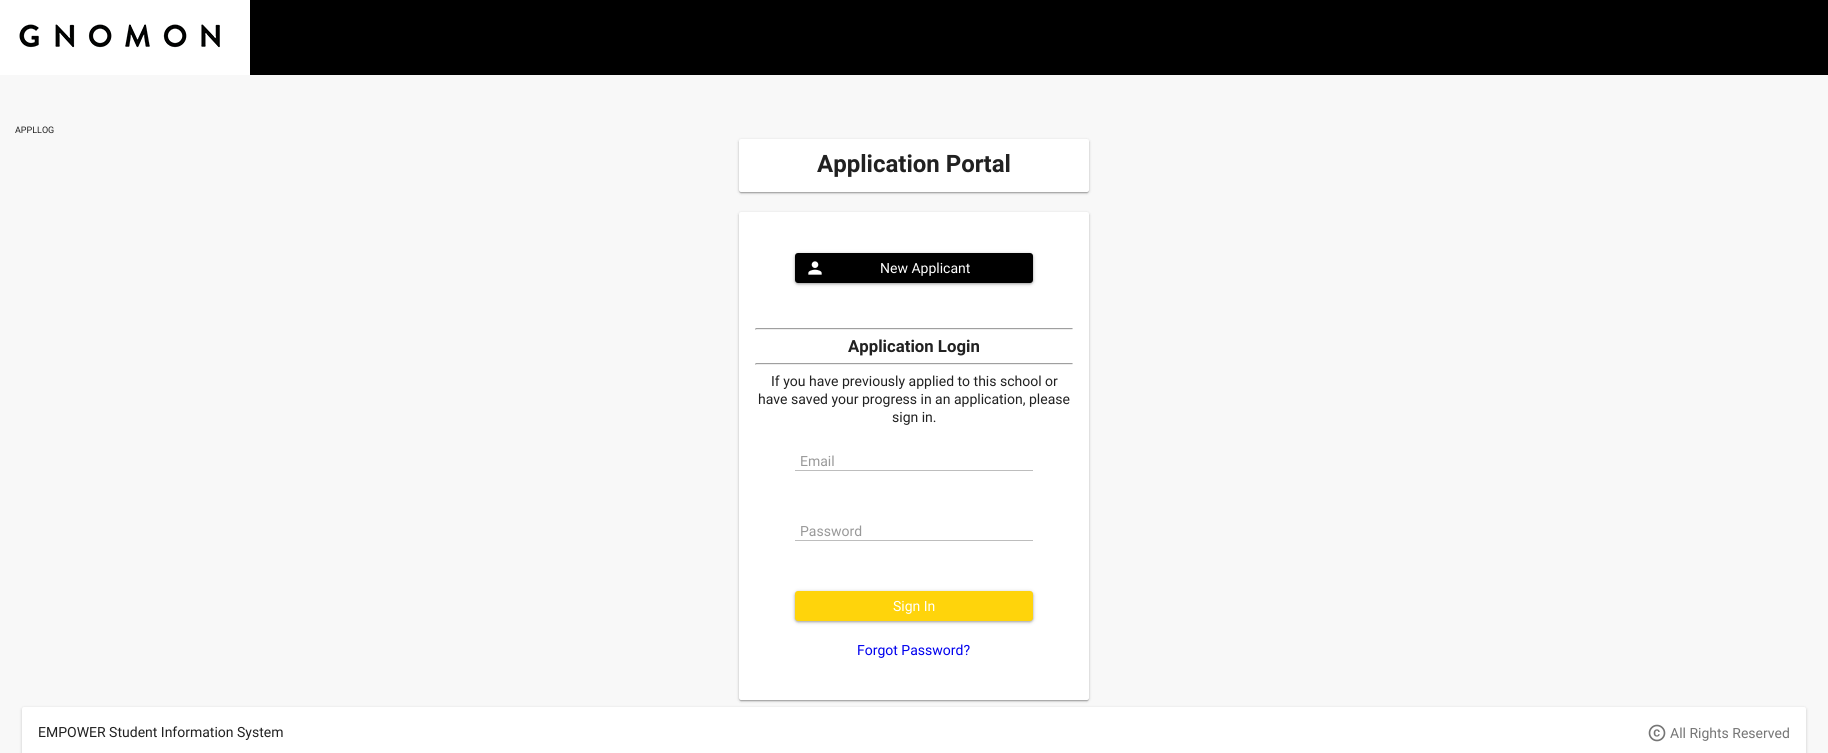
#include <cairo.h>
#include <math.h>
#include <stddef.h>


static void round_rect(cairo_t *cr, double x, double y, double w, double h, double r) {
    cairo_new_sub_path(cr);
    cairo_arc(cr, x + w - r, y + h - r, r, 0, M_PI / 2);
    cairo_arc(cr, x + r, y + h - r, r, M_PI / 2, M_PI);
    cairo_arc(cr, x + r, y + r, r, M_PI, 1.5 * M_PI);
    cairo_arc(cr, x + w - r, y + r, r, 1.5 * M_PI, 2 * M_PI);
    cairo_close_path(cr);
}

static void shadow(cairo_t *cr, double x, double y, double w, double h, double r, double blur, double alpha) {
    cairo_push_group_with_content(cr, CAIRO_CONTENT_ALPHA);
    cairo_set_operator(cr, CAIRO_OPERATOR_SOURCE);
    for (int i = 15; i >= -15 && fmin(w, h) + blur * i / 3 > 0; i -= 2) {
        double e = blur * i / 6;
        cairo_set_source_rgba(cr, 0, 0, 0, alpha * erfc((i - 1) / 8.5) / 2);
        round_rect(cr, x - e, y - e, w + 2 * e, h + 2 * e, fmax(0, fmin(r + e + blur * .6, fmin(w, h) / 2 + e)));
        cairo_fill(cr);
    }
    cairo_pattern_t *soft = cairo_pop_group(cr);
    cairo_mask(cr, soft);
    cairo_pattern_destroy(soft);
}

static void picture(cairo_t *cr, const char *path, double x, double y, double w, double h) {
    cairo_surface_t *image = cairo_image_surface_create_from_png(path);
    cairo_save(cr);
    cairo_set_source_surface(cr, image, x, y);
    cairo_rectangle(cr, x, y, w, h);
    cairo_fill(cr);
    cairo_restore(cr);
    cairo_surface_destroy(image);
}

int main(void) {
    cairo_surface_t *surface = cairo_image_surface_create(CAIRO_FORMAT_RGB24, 1828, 753);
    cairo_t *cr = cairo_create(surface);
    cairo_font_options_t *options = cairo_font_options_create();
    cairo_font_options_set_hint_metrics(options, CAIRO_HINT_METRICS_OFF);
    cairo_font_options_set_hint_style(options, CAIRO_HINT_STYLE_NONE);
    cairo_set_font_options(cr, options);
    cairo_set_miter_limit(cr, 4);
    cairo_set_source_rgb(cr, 0.969, 0.969, 0.969);
    cairo_paint(cr);
    cairo_set_source_rgb(cr, 0, 0, 0);
    cairo_rectangle(cr, 250, 0, 1578, 75);
    cairo_fill(cr);
    cairo_set_source_rgb(cr, 1, 1, 1);
    cairo_rectangle(cr, 0, 0, 250, 75);
    cairo_fill(cr);
    picture(cr, "img1.png", 19, 24, 201, 24);
    cairo_select_font_face(cr, "Roboto", CAIRO_FONT_SLANT_NORMAL, CAIRO_FONT_WEIGHT_NORMAL);
    cairo_set_font_size(cr, 9);
    cairo_set_source_rgb(cr, 0.129, 0.129, 0.129);
    cairo_move_to(cr, 15, 133);
    cairo_show_text(cr, "APPLLOG");
    cairo_set_source_rgb(cr, 0, 0, 0);
    shadow(cr, 740, 142, 348, 51, 1, 0.5, 0.12);
    shadow(cr, 739, 140, 350, 53, 2, 0.5, 0.14);
    shadow(cr, 739, 140, 350, 53, 2, 1.5, 0.2);
    cairo_set_source_rgb(cr, 1, 1, 1);
    round_rect(cr, 739, 139, 350, 53, 2);
    cairo_fill(cr);
    cairo_select_font_face(cr, "Roboto", CAIRO_FONT_SLANT_NORMAL, CAIRO_FONT_WEIGHT_BOLD);
    cairo_set_font_size(cr, 24);
    cairo_set_source_rgb(cr, 0.129, 0.129, 0.129);
    cairo_move_to(cr, 817, 172);
    cairo_show_text(cr, "Application Portal");
    cairo_set_source_rgb(cr, 0, 0, 0);
    shadow(cr, 740, 215, 348, 486, 1, 0.5, 0.12);
    shadow(cr, 739, 213, 350, 488, 2, 0.5, 0.14);
    shadow(cr, 739, 213, 350, 488, 2, 1.5, 0.2);
    cairo_set_source_rgb(cr, 1, 1, 1);
    round_rect(cr, 739, 212, 350, 488, 2);
    cairo_fill(cr);
    cairo_set_source_rgb(cr, 0, 0, 0);
    shadow(cr, 795, 254, 238, 30, 3, 2.5, 0.16);
    shadow(cr, 795, 254, 238, 30, 3, 1, 0.26);
    cairo_set_source_rgb(cr, 0, 0, 0);
    round_rect(cr, 795, 253, 238, 30, 3);
    cairo_fill(cr);
    picture(cr, "img2.png", 808, 261, 14, 14);
    cairo_select_font_face(cr, "Roboto", CAIRO_FONT_SLANT_NORMAL, CAIRO_FONT_WEIGHT_NORMAL);
    cairo_set_font_size(cr, 14);
    cairo_set_source_rgb(cr, 1, 1, 1);
    cairo_move_to(cr, 880, 273);
    cairo_show_text(cr, "New Applicant");
    cairo_new_path(cr);
    cairo_move_to(cr, 1072.5, 328.5);
    cairo_line_to(cr, 1072, 329.5);
    cairo_line_to(cr, 755.5, 329.5);
    cairo_set_source_rgb(cr, 0.933, 0.933, 0.933);
    cairo_set_line_width(cr, 1);
    cairo_stroke(cr);
    cairo_new_path(cr);
    cairo_move_to(cr, 755.5, 329.5);
    cairo_line_to(cr, 756, 328.5);
    cairo_line_to(cr, 1072.5, 328.5);
    cairo_set_source_rgb(cr, 0.624, 0.624, 0.624);
    cairo_stroke(cr);
    cairo_select_font_face(cr, "Roboto", CAIRO_FONT_SLANT_NORMAL, CAIRO_FONT_WEIGHT_BOLD);
    cairo_set_font_size(cr, 16.75);
    cairo_set_source_rgb(cr, 0.129, 0.129, 0.129);
    cairo_move_to(cr, 848, 352);
    cairo_show_text(cr, "Application Login");
    cairo_new_path(cr);
    cairo_move_to(cr, 1072.5, 363.5);
    cairo_line_to(cr, 1072, 364.5);
    cairo_line_to(cr, 755.5, 364.5);
    cairo_set_source_rgb(cr, 0.933, 0.933, 0.933);
    cairo_stroke(cr);
    cairo_new_path(cr);
    cairo_move_to(cr, 755.5, 364.5);
    cairo_line_to(cr, 756, 363.5);
    cairo_line_to(cr, 1072.5, 363.5);
    cairo_set_source_rgb(cr, 0.624, 0.624, 0.624);
    cairo_stroke(cr);
    cairo_select_font_face(cr, "Roboto", CAIRO_FONT_SLANT_NORMAL, CAIRO_FONT_WEIGHT_NORMAL);
    cairo_set_font_size(cr, 14);
    cairo_set_source_rgb(cr, 0.129, 0.129, 0.129);
    cairo_move_to(cr, 771, 386);
    cairo_show_text(cr, "If you have previously applied to this school or");
    cairo_move_to(cr, 758, 404);
    cairo_show_text(cr, "have saved your progress in an application, please");
    cairo_move_to(cr, 892, 422);
    cairo_show_text(cr, "sign in.");
    cairo_set_source_rgb(cr, 0.6, 0.6, 0.6);
    cairo_move_to(cr, 800, 466);
    cairo_show_text(cr, "Email");
    cairo_set_source_rgb(cr, 0.741, 0.741, 0.741);
    cairo_rectangle(cr, 795, 470, 238, 1);
    cairo_fill(cr);
    cairo_set_source_rgb(cr, 0.6, 0.6, 0.6);
    cairo_move_to(cr, 800, 536);
    cairo_show_text(cr, "Password");
    cairo_set_source_rgb(cr, 0.741, 0.741, 0.741);
    cairo_rectangle(cr, 795, 540, 238, 1);
    cairo_fill(cr);
    cairo_set_source_rgb(cr, 0, 0, 0);
    shadow(cr, 795, 592, 238, 30, 3, 2.5, 0.16);
    shadow(cr, 795, 592, 238, 30, 3, 1, 0.26);
    cairo_set_source_rgb(cr, 1, 0.831, 0.043);
    round_rect(cr, 795, 591, 238, 30, 3);
    cairo_fill(cr);
    cairo_set_source_rgb(cr, 1, 1, 1);
    cairo_move_to(cr, 893, 611);
    cairo_show_text(cr, "Sign In");
    cairo_set_source_rgb(cr, 0, 0, 0.933);
    cairo_move_to(cr, 857, 655);
    cairo_show_text(cr, "Forgot Password?");
    cairo_set_source_rgb(cr, 0, 0, 0);
    shadow(cr, 22, 708, 1784, 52, 2, 1.5, 0.2);
    cairo_set_source_rgb(cr, 1, 1, 1);
    round_rect(cr, 22, 707, 1784, 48, 2);
    cairo_fill(cr);
    cairo_set_source_rgb(cr, 0.129, 0.129, 0.129);
    cairo_move_to(cr, 38, 737);
    cairo_show_text(cr, "EMPOWER Student Information System");
    picture(cr, "img3.png", 1648, 724, 18, 18);
    cairo_set_source_rgb(cr, 0.459, 0.459, 0.459);
    cairo_move_to(cr, 1670, 738);
    cairo_show_text(cr, "All Rights Reserved");
    cairo_surface_write_to_png(surface, "page.png");
    cairo_font_options_destroy(options);
    cairo_destroy(cr);
    cairo_surface_destroy(surface);
    return 0;
}
